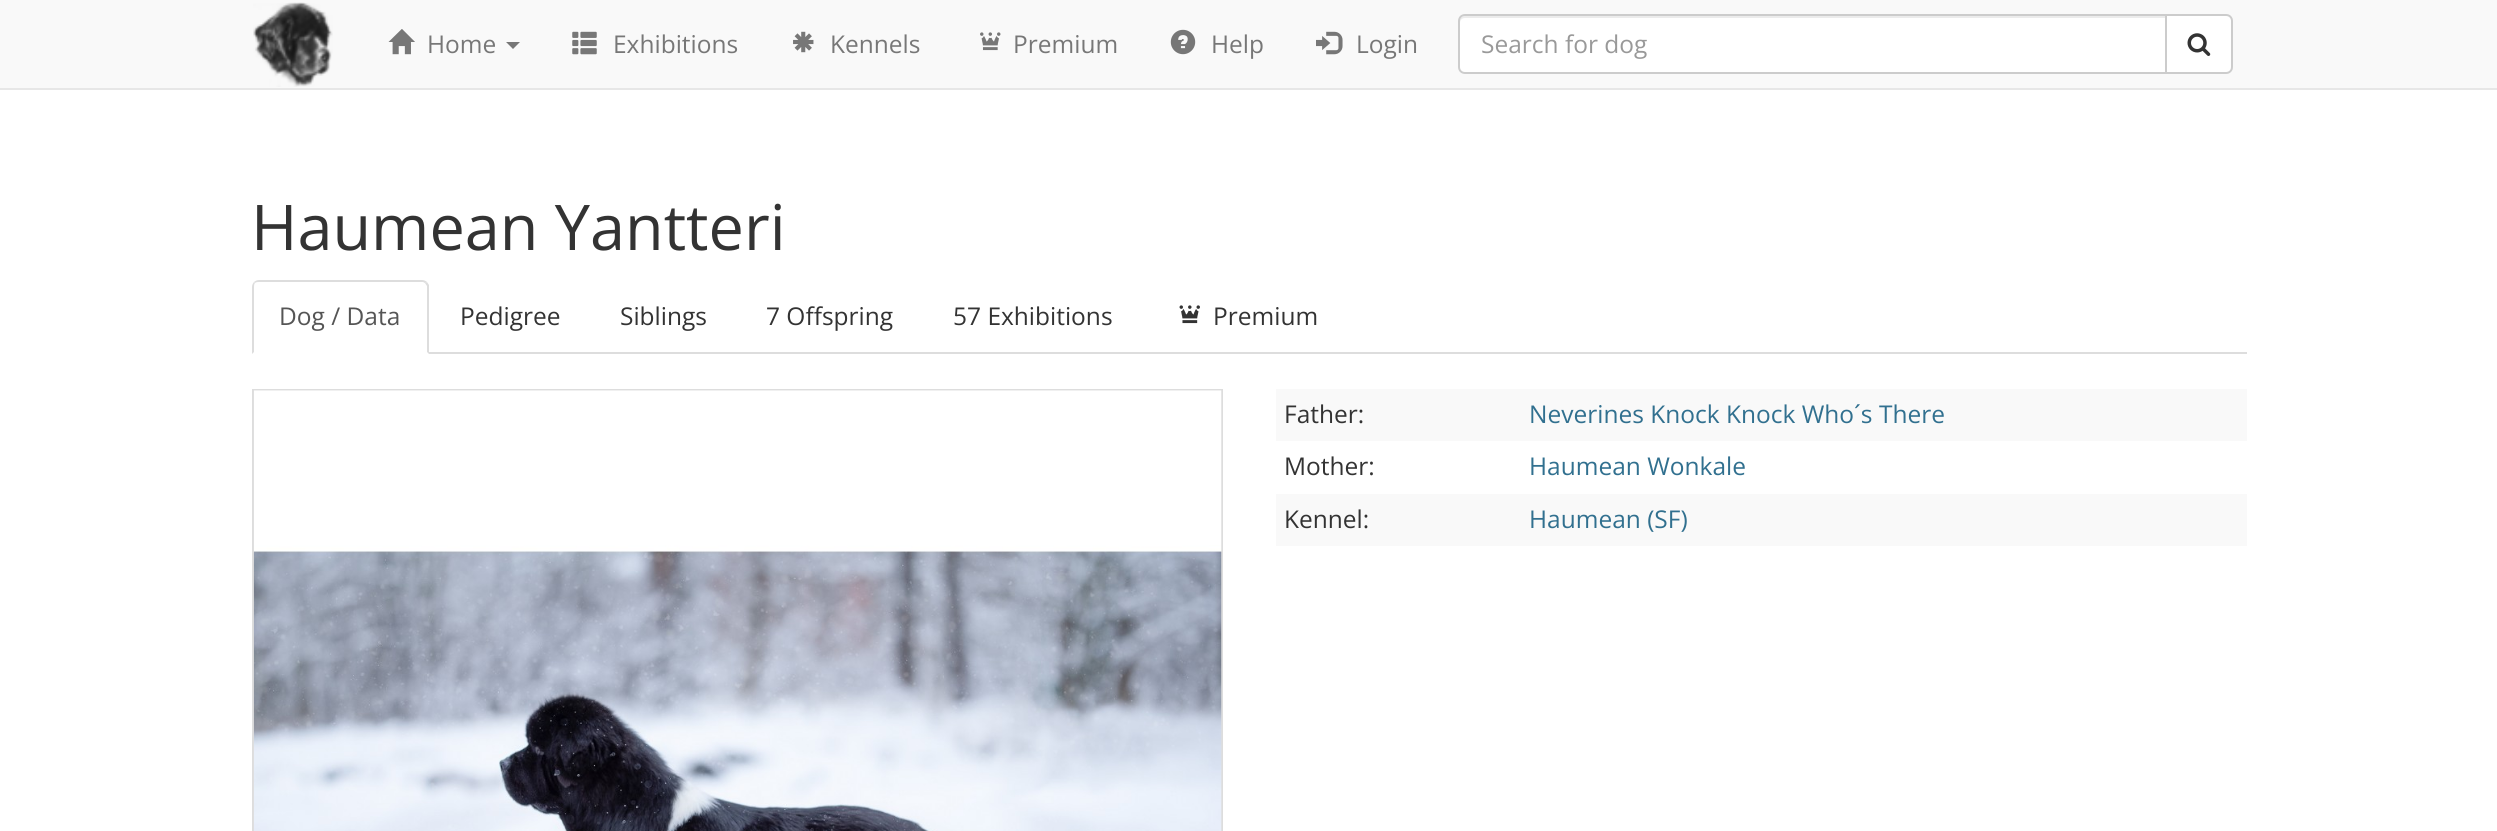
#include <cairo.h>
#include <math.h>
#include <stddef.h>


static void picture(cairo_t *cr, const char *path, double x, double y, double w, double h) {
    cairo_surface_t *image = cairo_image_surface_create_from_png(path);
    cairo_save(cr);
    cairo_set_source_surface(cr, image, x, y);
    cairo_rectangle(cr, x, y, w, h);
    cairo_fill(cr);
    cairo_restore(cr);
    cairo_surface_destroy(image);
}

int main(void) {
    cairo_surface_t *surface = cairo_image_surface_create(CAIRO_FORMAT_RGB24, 2497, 831);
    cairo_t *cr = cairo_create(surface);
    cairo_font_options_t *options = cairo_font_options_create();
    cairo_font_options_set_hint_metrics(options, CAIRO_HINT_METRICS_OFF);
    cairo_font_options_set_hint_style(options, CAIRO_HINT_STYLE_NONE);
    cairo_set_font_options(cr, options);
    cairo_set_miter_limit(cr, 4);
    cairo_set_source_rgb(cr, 1, 1, 1);
    cairo_paint(cr);
    cairo_set_source_rgb(cr, 0.973, 0.973, 0.973);
    cairo_rectangle(cr, 0, 0, 2497, 88);
    cairo_fill(cr);
    cairo_set_source_rgb(cr, 0.906, 0.906, 0.906);
    cairo_rectangle(cr, 0, 88, 2497, 2);
    cairo_fill(cr);
    picture(cr, "img1.png", 253, 2, 80, 85);
    picture(cr, "img2.png", 388, 29, 27, 26);
    cairo_select_font_face(cr, "Open Sans", CAIRO_FONT_SLANT_NORMAL, CAIRO_FONT_WEIGHT_NORMAL);
    cairo_set_font_size(cr, 24.5);
    cairo_set_source_rgb(cr, 0.467, 0.467, 0.467);
    cairo_move_to(cr, 427, 53);
    cairo_show_text(cr, "Home");
    cairo_new_path(cr);
    cairo_move_to(cr, 506, 42);
    cairo_line_to(cr, 520, 42);
    cairo_line_to(cr, 513, 49);
    cairo_close_path(cr);
    cairo_fill(cr);
    picture(cr, "img3.png", 572, 31, 25, 24);
    cairo_move_to(cr, 613, 53);
    cairo_show_text(cr, "Exhibitions");
    picture(cr, "img4.png", 793, 31, 21, 22);
    cairo_move_to(cr, 830, 53);
    cairo_show_text(cr, "Kennels");
    picture(cr, "img5.png", 980, 32, 21, 19);
    cairo_move_to(cr, 1013, 53);
    cairo_show_text(cr, "Premium");
    picture(cr, "img6.png", 1170, 29, 26, 26);
    cairo_move_to(cr, 1211, 53);
    cairo_show_text(cr, "Help");
    picture(cr, "img7.png", 1316, 31, 27, 24);
    cairo_move_to(cr, 1356, 53);
    cairo_show_text(cr, "Login");
    cairo_set_source_rgb(cr, 1, 1, 1);
    cairo_new_path(cr);
    cairo_move_to(cr, 2166, 15);
    cairo_line_to(cr, 2226, 15);
    cairo_curve_to(cr, 2229.5, 15, 2232, 17.5, 2232, 21);
    cairo_line_to(cr, 2232, 67);
    cairo_curve_to(cr, 2232, 70.5, 2229.5, 73, 2226, 73);
    cairo_line_to(cr, 2166, 73);
    cairo_close_path(cr);
    cairo_fill_preserve(cr);
    cairo_set_source_rgb(cr, 0.8, 0.8, 0.8);
    cairo_stroke(cr);
    cairo_set_source_rgb(cr, 1, 1, 1);
    cairo_new_path(cr);
    cairo_move_to(cr, 1465, 14);
    cairo_line_to(cr, 2167, 14);
    cairo_line_to(cr, 2167, 74);
    cairo_line_to(cr, 1465, 74);
    cairo_curve_to(cr, 1461, 74, 1458, 71, 1458, 67);
    cairo_line_to(cr, 1458, 21);
    cairo_curve_to(cr, 1458, 17, 1461, 14, 1465, 14);
    cairo_close_path(cr);
    cairo_fill(cr);
    cairo_set_source_rgb(cr, 0.925, 0.925, 0.925);
    cairo_new_path(cr);
    cairo_move_to(cr, 1465, 18);
    cairo_line_to(cr, 2165, 18);
    cairo_line_to(cr, 2165, 16);
    cairo_line_to(cr, 1465, 16);
    cairo_curve_to(cr, 1462, 16, 1460, 18, 1460, 21);
    cairo_line_to(cr, 1460, 23);
    cairo_curve_to(cr, 1460, 20, 1462, 18, 1465, 18);
    cairo_close_path(cr);
    cairo_fill(cr);
    cairo_new_path(cr);
    cairo_move_to(cr, 1465, 15);
    cairo_line_to(cr, 2166, 15);
    cairo_line_to(cr, 2166, 73);
    cairo_line_to(cr, 1465, 73);
    cairo_curve_to(cr, 1461.5, 73, 1459, 70.5, 1459, 67);
    cairo_line_to(cr, 1459, 21);
    cairo_curve_to(cr, 1459, 17.5, 1461.5, 15, 1465, 15);
    cairo_close_path(cr);
    cairo_set_source_rgb(cr, 0.8, 0.8, 0.8);
    cairo_stroke(cr);
    cairo_set_source_rgb(cr, 0.6, 0.6, 0.6);
    cairo_move_to(cr, 1481, 53);
    cairo_show_text(cr, "Search for dog");
    picture(cr, "img8.png", 2187, 33, 24, 23);
    cairo_set_font_size(cr, 63);
    cairo_set_source_rgb(cr, 0.2, 0.2, 0.2);
    cairo_move_to(cr, 251, 250);
    cairo_show_text(cr, "Haumean Yantteri");
    cairo_set_source_rgb(cr, 0.867, 0.867, 0.867);
    cairo_rectangle(cr, 429, 352, 1818, 2);
    cairo_fill(cr);
    cairo_new_path(cr);
    cairo_move_to(cr, 259, 280);
    cairo_curve_to(cr, 257, 280, 255, 281, 254, 282);
    cairo_line_to(cr, 255, 283);
    cairo_curve_to(cr, 256, 282, 258, 282, 259, 282);
    cairo_line_to(cr, 423, 282);
    cairo_line_to(cr, 425, 283);
    cairo_line_to(cr, 427, 282);
    cairo_curve_to(cr, 426, 281, 424, 280, 422, 280);
    cairo_close_path(cr);
    cairo_fill(cr);
    cairo_new_path(cr);
    cairo_move_to(cr, 427, 282);
    cairo_line_to(cr, 429, 285);
    cairo_line_to(cr, 429, 354);
    cairo_line_to(cr, 427, 352);
    cairo_line_to(cr, 427, 286);
    cairo_line_to(cr, 425, 283);
    cairo_close_path(cr);
    cairo_fill(cr);
    cairo_new_path(cr);
    cairo_move_to(cr, 252, 354);
    cairo_line_to(cr, 254, 352);
    cairo_line_to(cr, 254, 287);
    cairo_curve_to(cr, 254, 286, 254, 284, 255, 283);
    cairo_line_to(cr, 254, 282);
    cairo_curve_to(cr, 253, 283, 252, 285, 252, 287);
    cairo_close_path(cr);
    cairo_fill(cr);
    cairo_set_font_size(cr, 24.5);
    cairo_set_source_rgb(cr, 0.333, 0.333, 0.333);
    cairo_move_to(cr, 279, 325);
    cairo_show_text(cr, "Dog / Data");
    cairo_set_source_rgb(cr, 0.2, 0.2, 0.2);
    cairo_move_to(cr, 460, 325);
    cairo_show_text(cr, "Pedigree");
    cairo_move_to(cr, 620, 325);
    cairo_show_text(cr, "Siblings");
    cairo_move_to(cr, 766, 325);
    cairo_show_text(cr, "7 Offspring");
    cairo_move_to(cr, 953, 325);
    cairo_show_text(cr, "57 Exhibitions");
    picture(cr, "img9.png", 1179, 305, 21, 19);
    cairo_move_to(cr, 1213, 325);
    cairo_show_text(cr, "Premium");
    cairo_rectangle(cr, 253, 390, 969, 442);
    cairo_set_source_rgb(cr, 0.867, 0.867, 0.867);
    cairo_stroke(cr);
    picture(cr, "img10.png", 253, 390, 969, 441);
    cairo_set_source_rgb(cr, 0.973, 0.973, 0.973);
    cairo_rectangle(cr, 1276, 389, 971, 52);
    cairo_fill(cr);
    cairo_set_source_rgb(cr, 0.2, 0.2, 0.2);
    cairo_move_to(cr, 1284, 423);
    cairo_show_text(cr, "Father:");
    cairo_set_source_rgb(cr, 0.192, 0.439, 0.561);
    cairo_move_to(cr, 1529, 423);
    cairo_show_text(cr, "Neverines Knock Knock Who´s There");
    cairo_set_source_rgb(cr, 0.2, 0.2, 0.2);
    cairo_move_to(cr, 1284, 475);
    cairo_show_text(cr, "Mother:");
    cairo_set_source_rgb(cr, 0.192, 0.439, 0.561);
    cairo_move_to(cr, 1529, 475);
    cairo_show_text(cr, "Haumean Wonkale");
    cairo_set_source_rgb(cr, 0.973, 0.973, 0.973);
    cairo_rectangle(cr, 1276, 494, 971, 52);
    cairo_fill(cr);
    cairo_set_source_rgb(cr, 0.2, 0.2, 0.2);
    cairo_move_to(cr, 1284, 528);
    cairo_show_text(cr, "Kennel:");
    cairo_set_source_rgb(cr, 0.192, 0.439, 0.561);
    cairo_move_to(cr, 1529, 528);
    cairo_show_text(cr, "Haumean (SF)");
    cairo_surface_write_to_png(surface, "page.png");
    cairo_font_options_destroy(options);
    cairo_destroy(cr);
    cairo_surface_destroy(surface);
    return 0;
}
